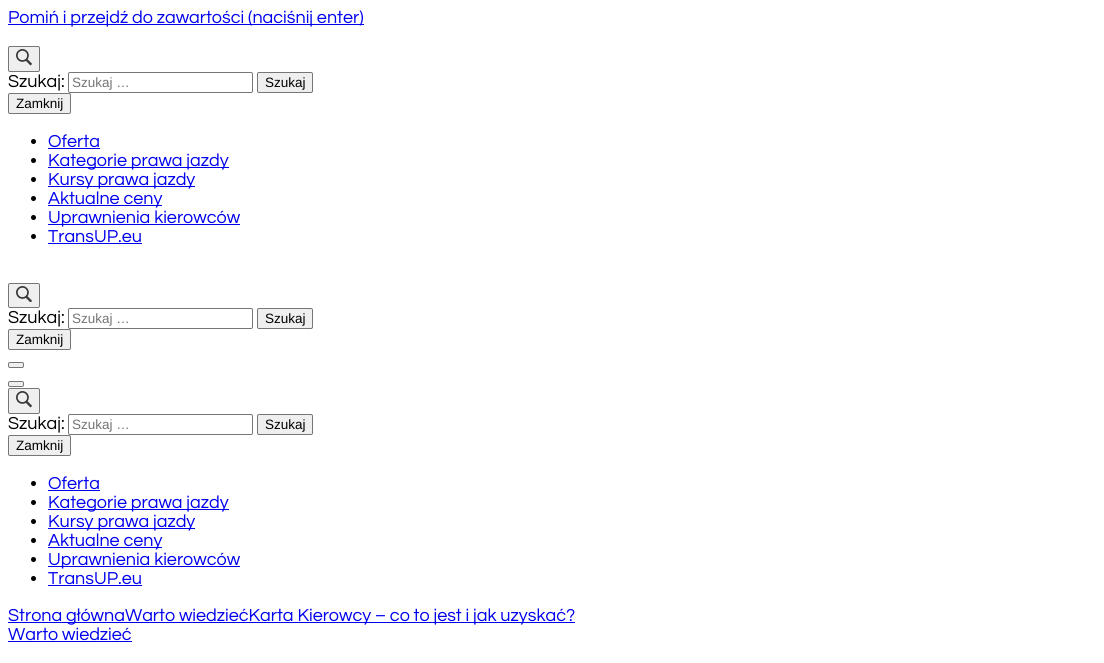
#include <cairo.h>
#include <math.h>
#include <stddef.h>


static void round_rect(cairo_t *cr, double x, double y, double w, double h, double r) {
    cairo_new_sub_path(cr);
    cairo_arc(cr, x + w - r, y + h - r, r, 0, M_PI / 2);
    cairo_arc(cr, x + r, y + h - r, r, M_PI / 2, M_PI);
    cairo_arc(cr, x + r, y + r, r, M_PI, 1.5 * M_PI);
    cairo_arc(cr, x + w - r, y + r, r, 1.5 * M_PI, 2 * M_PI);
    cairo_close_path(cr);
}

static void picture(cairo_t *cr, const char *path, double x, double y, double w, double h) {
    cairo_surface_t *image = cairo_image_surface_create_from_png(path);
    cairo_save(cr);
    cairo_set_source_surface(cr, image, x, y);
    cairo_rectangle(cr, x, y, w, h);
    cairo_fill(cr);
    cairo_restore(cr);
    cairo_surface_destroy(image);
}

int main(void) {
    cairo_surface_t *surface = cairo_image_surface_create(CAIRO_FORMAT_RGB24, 1104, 663);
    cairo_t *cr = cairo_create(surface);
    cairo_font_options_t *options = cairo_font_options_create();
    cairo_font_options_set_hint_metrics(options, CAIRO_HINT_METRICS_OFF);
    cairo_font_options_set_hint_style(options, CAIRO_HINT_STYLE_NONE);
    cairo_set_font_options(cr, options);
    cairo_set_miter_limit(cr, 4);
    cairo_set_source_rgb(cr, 1, 1, 1);
    cairo_paint(cr);
    cairo_set_source_rgb(cr, 0, 0, 0.933);
    cairo_rectangle(cr, 8, 24, 356, 1);
    cairo_fill(cr);
    cairo_select_font_face(cr, "Questrial", CAIRO_FONT_SLANT_NORMAL, CAIRO_FONT_WEIGHT_NORMAL);
    cairo_set_font_size(cr, 18);
    cairo_move_to(cr, 8, 23);
    cairo_show_text(cr, "Pomiń i przejdź do zawartości (naciśnij enter)");
    cairo_set_source_rgb(cr, 0.937, 0.937, 0.937);
    round_rect(cr, 8.5, 46.5, 31, 25, 1.5);
    cairo_fill_preserve(cr);
    cairo_set_source_rgb(cr, 0.463, 0.463, 0.463);
    cairo_set_line_width(cr, 1);
    cairo_stroke(cr);
    picture(cr, "img1.png", 16, 49, 16, 17);
    cairo_set_source_rgb(cr, 0, 0, 0);
    cairo_move_to(cr, 8, 87);
    cairo_show_text(cr, "Szukaj:");
    round_rect(cr, 68.5, 72.5, 184, 20, 1.5);
    cairo_set_source_rgb(cr, 0.463, 0.463, 0.463);
    cairo_stroke(cr);
    cairo_select_font_face(cr, "Liberation Sans", CAIRO_FONT_SLANT_NORMAL, CAIRO_FONT_WEIGHT_NORMAL);
    cairo_set_font_size(cr, 13.5);
    cairo_set_source_rgb(cr, 0.459, 0.459, 0.459);
    cairo_move_to(cr, 72, 87);
    cairo_show_text(cr, "Szukaj …");
    cairo_set_source_rgb(cr, 0.937, 0.937, 0.937);
    round_rect(cr, 257.5, 72.5, 55, 20, 1.5);
    cairo_fill_preserve(cr);
    cairo_set_source_rgb(cr, 0.463, 0.463, 0.463);
    cairo_stroke(cr);
    cairo_set_source_rgb(cr, 0, 0, 0);
    cairo_move_to(cr, 265, 87);
    cairo_show_text(cr, "Szukaj");
    cairo_set_source_rgb(cr, 0.937, 0.937, 0.937);
    round_rect(cr, 8.5, 93.5, 62, 20, 1.5);
    cairo_fill_preserve(cr);
    cairo_set_source_rgb(cr, 0.463, 0.463, 0.463);
    cairo_stroke(cr);
    cairo_set_source_rgb(cr, 0, 0, 0);
    cairo_move_to(cr, 16, 108);
    cairo_show_text(cr, "Zamknij");
    cairo_new_path(cr);
    cairo_arc(cr, 33.5, 141.5, 2.5, 0, 2 * M_PI);
    cairo_fill(cr);
    cairo_select_font_face(cr, "Questrial", CAIRO_FONT_SLANT_NORMAL, CAIRO_FONT_WEIGHT_NORMAL);
    cairo_set_font_size(cr, 18);
    cairo_set_source_rgb(cr, 0, 0, 0.933);
    cairo_move_to(cr, 48, 147);
    cairo_show_text(cr, "Oferta");
    cairo_rectangle(cr, 48, 148, 52, 1);
    cairo_fill(cr);
    cairo_set_source_rgb(cr, 0, 0, 0);
    cairo_arc(cr, 33.5, 160.5, 2.5, 0, 2 * M_PI);
    cairo_fill(cr);
    cairo_set_source_rgb(cr, 0, 0, 0.933);
    cairo_rectangle(cr, 48, 167, 181, 1);
    cairo_fill(cr);
    cairo_move_to(cr, 48, 166);
    cairo_show_text(cr, "Kategorie prawa jazdy");
    cairo_set_source_rgb(cr, 0, 0, 0);
    cairo_new_path(cr);
    cairo_arc(cr, 33.5, 179.5, 2.5, 0, 2 * M_PI);
    cairo_fill(cr);
    cairo_set_source_rgb(cr, 0, 0, 0.933);
    cairo_rectangle(cr, 48, 186, 147, 1);
    cairo_fill(cr);
    cairo_move_to(cr, 48, 185);
    cairo_show_text(cr, "Kursy prawa jazdy");
    cairo_set_source_rgb(cr, 0, 0, 0);
    cairo_new_path(cr);
    cairo_arc(cr, 33.5, 198.5, 2.5, 0, 2 * M_PI);
    cairo_fill(cr);
    cairo_set_source_rgb(cr, 0, 0, 0.933);
    cairo_rectangle(cr, 48, 205, 114, 1);
    cairo_fill(cr);
    cairo_move_to(cr, 48, 204);
    cairo_show_text(cr, "Aktualne ceny");
    cairo_set_source_rgb(cr, 0, 0, 0);
    cairo_new_path(cr);
    cairo_arc(cr, 33.5, 217.5, 2.5, 0, 2 * M_PI);
    cairo_fill(cr);
    cairo_set_source_rgb(cr, 0, 0, 0.933);
    cairo_rectangle(cr, 48, 224, 192, 1);
    cairo_fill(cr);
    cairo_move_to(cr, 48, 223);
    cairo_show_text(cr, "Uprawnienia kierowców");
    cairo_set_source_rgb(cr, 0, 0, 0);
    cairo_new_path(cr);
    cairo_arc(cr, 33.5, 236.5, 2.5, 0, 2 * M_PI);
    cairo_fill(cr);
    cairo_set_source_rgb(cr, 0, 0, 0.933);
    cairo_move_to(cr, 48, 242);
    cairo_show_text(cr, "TransUP.eu");
    cairo_rectangle(cr, 48, 243, 94, 1);
    cairo_fill(cr);
    cairo_set_source_rgb(cr, 0.937, 0.937, 0.937);
    round_rect(cr, 8.5, 283.5, 31, 24, 1.5);
    cairo_fill_preserve(cr);
    cairo_set_source_rgb(cr, 0.463, 0.463, 0.463);
    cairo_stroke(cr);
    picture(cr, "img2.png", 16, 286, 16, 16);
    cairo_set_source_rgb(cr, 0, 0, 0);
    cairo_move_to(cr, 8, 323);
    cairo_show_text(cr, "Szukaj:");
    round_rect(cr, 68.5, 308.5, 184, 20, 1.5);
    cairo_set_source_rgb(cr, 0.463, 0.463, 0.463);
    cairo_stroke(cr);
    cairo_select_font_face(cr, "Liberation Sans", CAIRO_FONT_SLANT_NORMAL, CAIRO_FONT_WEIGHT_NORMAL);
    cairo_set_font_size(cr, 13.5);
    cairo_set_source_rgb(cr, 0.459, 0.459, 0.459);
    cairo_move_to(cr, 72, 323);
    cairo_show_text(cr, "Szukaj …");
    cairo_set_source_rgb(cr, 0.937, 0.937, 0.937);
    round_rect(cr, 257.5, 308.5, 55, 20, 1.5);
    cairo_fill_preserve(cr);
    cairo_set_source_rgb(cr, 0.463, 0.463, 0.463);
    cairo_stroke(cr);
    cairo_set_source_rgb(cr, 0, 0, 0);
    cairo_move_to(cr, 265, 323);
    cairo_show_text(cr, "Szukaj");
    cairo_set_source_rgb(cr, 0.937, 0.937, 0.937);
    round_rect(cr, 8.5, 329.5, 62, 20, 1.5);
    cairo_fill_preserve(cr);
    cairo_set_source_rgb(cr, 0.463, 0.463, 0.463);
    cairo_stroke(cr);
    cairo_set_source_rgb(cr, 0, 0, 0);
    cairo_move_to(cr, 16, 344);
    cairo_show_text(cr, "Zamknij");
    cairo_set_source_rgb(cr, 0.937, 0.937, 0.937);
    round_rect(cr, 8.5, 362.5, 15, 5, 1.5);
    cairo_fill_preserve(cr);
    cairo_set_source_rgb(cr, 0.463, 0.463, 0.463);
    cairo_stroke(cr);
    cairo_set_source_rgb(cr, 0.937, 0.937, 0.937);
    round_rect(cr, 8.5, 381.5, 15, 5, 1.5);
    cairo_fill_preserve(cr);
    cairo_set_source_rgb(cr, 0.463, 0.463, 0.463);
    cairo_stroke(cr);
    cairo_set_source_rgb(cr, 0.937, 0.937, 0.937);
    round_rect(cr, 8.5, 388.5, 31, 25, 1.5);
    cairo_fill_preserve(cr);
    cairo_set_source_rgb(cr, 0.463, 0.463, 0.463);
    cairo_stroke(cr);
    picture(cr, "img1.png", 16, 391, 16, 17);
    cairo_select_font_face(cr, "Questrial", CAIRO_FONT_SLANT_NORMAL, CAIRO_FONT_WEIGHT_NORMAL);
    cairo_set_font_size(cr, 18);
    cairo_set_source_rgb(cr, 0, 0, 0);
    cairo_move_to(cr, 8, 429);
    cairo_show_text(cr, "Szukaj:");
    round_rect(cr, 68.5, 414.5, 184, 20, 1.5);
    cairo_set_source_rgb(cr, 0.463, 0.463, 0.463);
    cairo_stroke(cr);
    cairo_select_font_face(cr, "Liberation Sans", CAIRO_FONT_SLANT_NORMAL, CAIRO_FONT_WEIGHT_NORMAL);
    cairo_set_font_size(cr, 13.5);
    cairo_set_source_rgb(cr, 0.459, 0.459, 0.459);
    cairo_move_to(cr, 72, 429);
    cairo_show_text(cr, "Szukaj …");
    cairo_set_source_rgb(cr, 0.937, 0.937, 0.937);
    round_rect(cr, 257.5, 414.5, 55, 20, 1.5);
    cairo_fill_preserve(cr);
    cairo_set_source_rgb(cr, 0.463, 0.463, 0.463);
    cairo_stroke(cr);
    cairo_set_source_rgb(cr, 0, 0, 0);
    cairo_move_to(cr, 265, 429);
    cairo_show_text(cr, "Szukaj");
    cairo_set_source_rgb(cr, 0.937, 0.937, 0.937);
    round_rect(cr, 8.5, 435.5, 62, 20, 1.5);
    cairo_fill_preserve(cr);
    cairo_set_source_rgb(cr, 0.463, 0.463, 0.463);
    cairo_stroke(cr);
    cairo_set_source_rgb(cr, 0, 0, 0);
    cairo_move_to(cr, 16, 450);
    cairo_show_text(cr, "Zamknij");
    cairo_new_path(cr);
    cairo_arc(cr, 33.5, 483.5, 2.5, 0, 2 * M_PI);
    cairo_fill(cr);
    cairo_select_font_face(cr, "Questrial", CAIRO_FONT_SLANT_NORMAL, CAIRO_FONT_WEIGHT_NORMAL);
    cairo_set_font_size(cr, 18);
    cairo_set_source_rgb(cr, 0, 0, 0.933);
    cairo_move_to(cr, 48, 489);
    cairo_show_text(cr, "Oferta");
    cairo_rectangle(cr, 48, 490, 52, 1);
    cairo_fill(cr);
    cairo_set_source_rgb(cr, 0, 0, 0);
    cairo_arc(cr, 33.5, 502.5, 2.5, 0, 2 * M_PI);
    cairo_fill(cr);
    cairo_set_source_rgb(cr, 0, 0, 0.933);
    cairo_rectangle(cr, 48, 509, 181, 1);
    cairo_fill(cr);
    cairo_move_to(cr, 48, 508);
    cairo_show_text(cr, "Kategorie prawa jazdy");
    cairo_set_source_rgb(cr, 0, 0, 0);
    cairo_new_path(cr);
    cairo_arc(cr, 33.5, 521.5, 2.5, 0, 2 * M_PI);
    cairo_fill(cr);
    cairo_set_source_rgb(cr, 0, 0, 0.933);
    cairo_rectangle(cr, 48, 528, 147, 1);
    cairo_fill(cr);
    cairo_move_to(cr, 48, 527);
    cairo_show_text(cr, "Kursy prawa jazdy");
    cairo_set_source_rgb(cr, 0, 0, 0);
    cairo_new_path(cr);
    cairo_arc(cr, 33.5, 540.5, 2.5, 0, 2 * M_PI);
    cairo_fill(cr);
    cairo_set_source_rgb(cr, 0, 0, 0.933);
    cairo_rectangle(cr, 48, 547, 114, 1);
    cairo_fill(cr);
    cairo_move_to(cr, 48, 546);
    cairo_show_text(cr, "Aktualne ceny");
    cairo_set_source_rgb(cr, 0, 0, 0);
    cairo_new_path(cr);
    cairo_arc(cr, 33.5, 559.5, 2.5, 0, 2 * M_PI);
    cairo_fill(cr);
    cairo_set_source_rgb(cr, 0, 0, 0.933);
    cairo_rectangle(cr, 48, 566, 192, 1);
    cairo_fill(cr);
    cairo_move_to(cr, 48, 565);
    cairo_show_text(cr, "Uprawnienia kierowców");
    cairo_set_source_rgb(cr, 0, 0, 0);
    cairo_new_path(cr);
    cairo_arc(cr, 33.5, 578.5, 2.5, 0, 2 * M_PI);
    cairo_fill(cr);
    cairo_set_source_rgb(cr, 0, 0, 0.933);
    cairo_move_to(cr, 48, 584);
    cairo_show_text(cr, "TransUP.eu");
    cairo_rectangle(cr, 48, 585, 94, 1);
    cairo_fill(cr);
    cairo_rectangle(cr, 8, 622, 567, 1);
    cairo_fill(cr);
    cairo_move_to(cr, 8, 621);
    cairo_show_text(cr, "Strona głównaWarto wiedziećKarta Kierowcy – co to jest i jak uzyskać?");
    cairo_move_to(cr, 8, 640);
    cairo_show_text(cr, "Warto wiedzieć");
    cairo_rectangle(cr, 8, 641, 124, 1);
    cairo_fill(cr);
    cairo_surface_write_to_png(surface, "page.png");
    cairo_font_options_destroy(options);
    cairo_destroy(cr);
    cairo_surface_destroy(surface);
    return 0;
}
